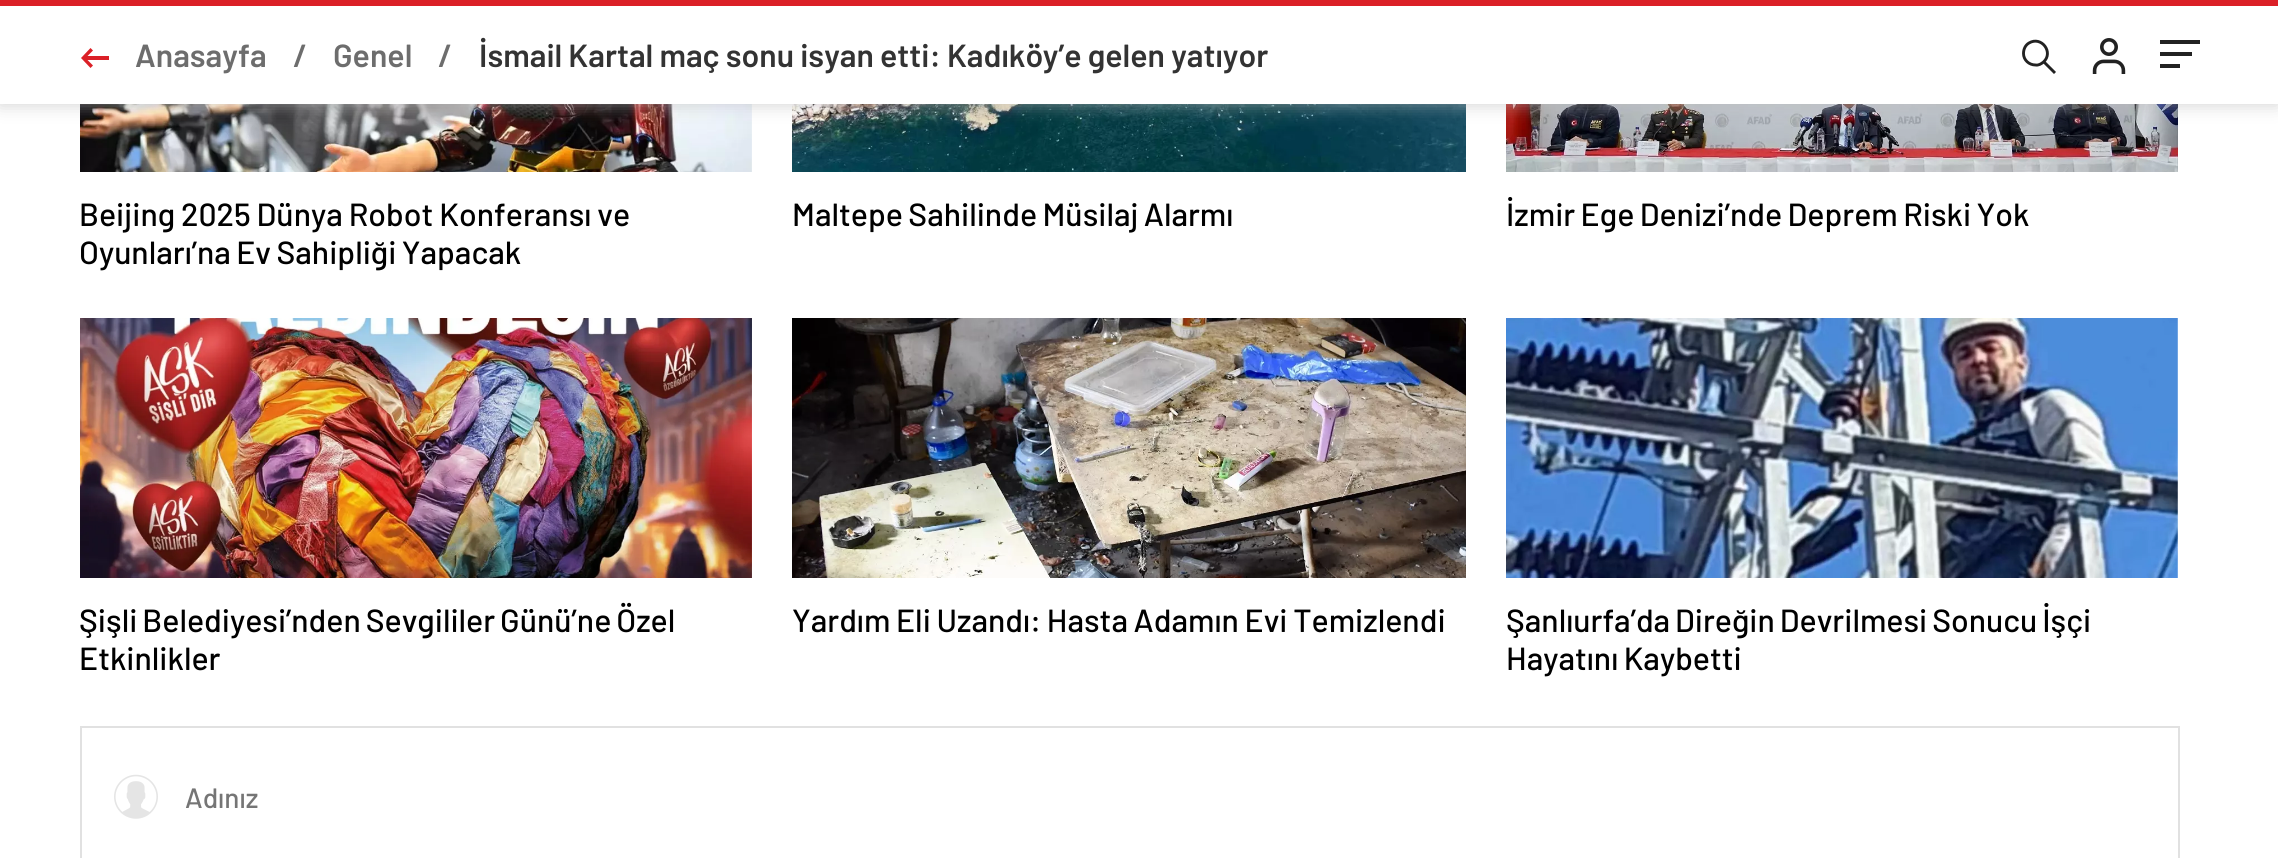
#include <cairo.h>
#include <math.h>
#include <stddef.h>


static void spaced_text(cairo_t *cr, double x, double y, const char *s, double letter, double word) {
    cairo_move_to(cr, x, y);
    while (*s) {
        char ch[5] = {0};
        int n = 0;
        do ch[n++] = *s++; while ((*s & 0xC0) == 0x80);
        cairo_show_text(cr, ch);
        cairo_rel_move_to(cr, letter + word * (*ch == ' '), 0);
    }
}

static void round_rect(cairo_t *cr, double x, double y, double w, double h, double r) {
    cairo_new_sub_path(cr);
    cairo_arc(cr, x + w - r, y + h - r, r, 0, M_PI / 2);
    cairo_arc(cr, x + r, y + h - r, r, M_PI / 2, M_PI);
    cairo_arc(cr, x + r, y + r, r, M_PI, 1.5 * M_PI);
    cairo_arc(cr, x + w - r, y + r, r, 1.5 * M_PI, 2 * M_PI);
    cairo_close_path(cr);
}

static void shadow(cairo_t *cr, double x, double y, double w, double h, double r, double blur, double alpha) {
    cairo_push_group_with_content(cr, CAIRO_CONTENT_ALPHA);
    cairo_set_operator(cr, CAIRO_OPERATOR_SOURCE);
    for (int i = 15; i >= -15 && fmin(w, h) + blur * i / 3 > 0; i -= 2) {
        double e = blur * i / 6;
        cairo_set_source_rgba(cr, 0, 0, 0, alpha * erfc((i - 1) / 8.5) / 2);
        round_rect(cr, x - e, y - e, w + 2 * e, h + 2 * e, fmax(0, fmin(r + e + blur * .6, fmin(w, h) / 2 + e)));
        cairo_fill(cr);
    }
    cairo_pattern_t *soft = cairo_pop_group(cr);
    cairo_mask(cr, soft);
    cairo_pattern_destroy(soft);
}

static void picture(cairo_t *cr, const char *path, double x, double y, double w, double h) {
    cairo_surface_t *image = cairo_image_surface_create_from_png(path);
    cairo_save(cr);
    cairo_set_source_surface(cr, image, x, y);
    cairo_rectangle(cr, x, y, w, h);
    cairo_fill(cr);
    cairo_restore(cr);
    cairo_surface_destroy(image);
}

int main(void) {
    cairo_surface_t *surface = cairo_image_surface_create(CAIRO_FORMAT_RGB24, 2278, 858);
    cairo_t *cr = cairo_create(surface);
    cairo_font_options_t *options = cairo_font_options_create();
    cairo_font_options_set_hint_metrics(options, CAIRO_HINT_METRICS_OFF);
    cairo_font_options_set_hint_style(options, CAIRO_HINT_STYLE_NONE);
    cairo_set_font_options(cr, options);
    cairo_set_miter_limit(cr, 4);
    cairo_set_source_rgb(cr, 1, 1, 1);
    cairo_paint(cr);
    picture(cr, "img2.png", 80, 104, 672, 68);
    picture(cr, "img3.png", 792, 104, 674, 68);
    picture(cr, "img4.png", 1506, 104, 672, 68);
    cairo_set_source_rgb(cr, 0.729, 0.729, 0.729);
    shadow(cr, 0, 2, 2278, 104, 0, 8, 0.58);
    cairo_set_source_rgb(cr, 1, 1, 1);
    cairo_rectangle(cr, 0, 6, 2278, 98);
    cairo_fill(cr);
    cairo_set_source_rgb(cr, 0.859, 0.125, 0.153);
    cairo_rectangle(cr, 0, 0, 2278, 6);
    cairo_fill(cr);
    cairo_new_path(cr);
    cairo_move_to(cr, 109, 60);
    cairo_line_to(cr, 87.5, 60);
    cairo_line_to(cr, 93, 65.5);
    cairo_line_to(cr, 90.5, 68);
    cairo_line_to(cr, 81, 58);
    cairo_line_to(cr, 90.5, 48);
    cairo_line_to(cr, 93, 50.5);
    cairo_line_to(cr, 87.5, 56);
    cairo_line_to(cr, 109, 56);
    cairo_close_path(cr);
    cairo_fill(cr);
    cairo_select_font_face(cr, "Barlow SemiBold", CAIRO_FONT_SLANT_NORMAL, CAIRO_FONT_WEIGHT_NORMAL);
    cairo_set_font_size(cr, 32);
    cairo_set_source_rgb(cr, 0.427, 0.427, 0.427);
    cairo_move_to(cr, 135, 67);
    cairo_show_text(cr, "Anasayfa");
    cairo_move_to(cr, 293, 67);
    cairo_show_text(cr, "/");
    cairo_move_to(cr, 333, 67);
    cairo_show_text(cr, "Genel");
    cairo_move_to(cr, 438, 67);
    cairo_show_text(cr, "/");
    cairo_set_source_rgb(cr, 0.2, 0.2, 0.2);
    spaced_text(cr, 479, 67, "İsmail Kartal maç sonu isyan etti: Kadıköy’e gelen yatıyor", 0, -0.25);
    cairo_new_path(cr);
    cairo_move_to(cr, 2044.5, 62.5);
    cairo_line_to(cr, 2055, 73);
    cairo_close_path(cr);
    cairo_move_to(cr, 2023.5, 53.5);
    cairo_curve_to(cr, 2023.5, 49, 2025.5, 45, 2029, 43);
    cairo_curve_to(cr, 2041.5, 35.5, 2054, 52.5, 2043.5, 62);
    cairo_curve_to(cr, 2041, 64, 2038.5, 65.5, 2035.5, 65);
    cairo_curve_to(cr, 2029, 65, 2023.5, 60, 2023.5, 53.5);
    cairo_close_path(cr);
    cairo_set_source_rgb(cr, 0.133, 0.133, 0.133);
    cairo_set_line_width(cr, 2.9);
    cairo_set_line_cap(cr, CAIRO_LINE_CAP_ROUND);
    cairo_stroke(cr);
    picture(cr, "img1.png", 2092, 38, 34, 36);
    cairo_rectangle(cr, 2160, 40, 40, 4);
    cairo_fill(cr);
    cairo_rectangle(cr, 2160, 52, 32, 4);
    cairo_fill(cr);
    cairo_rectangle(cr, 2160, 64, 20, 4);
    cairo_fill(cr);
    cairo_select_font_face(cr, "Barlow Medium", CAIRO_FONT_SLANT_NORMAL, CAIRO_FONT_WEIGHT_NORMAL);
    cairo_set_source_rgb(cr, 0, 0, 0);
    spaced_text(cr, 79, 226, "Beijing 2025 Dünya Robot Konferansı ve", 0, -0.5);
    spaced_text(cr, 79, 264, "Oyunları’na Ev Sahipliği Yapacak", 0, -1);
    spaced_text(cr, 792, 226, "Maltepe Sahilinde Müsilaj Alarmı", 0, -1);
    spaced_text(cr, 1506, 226, "İzmir Ege Denizi’nde Deprem Riski Yok", 0, -1);
    picture(cr, "img5.png", 80, 318, 672, 260);
    spaced_text(cr, 79, 632, "Şişli Belediyesi’nden Sevgililer Günü’ne Özel", 0, -1.5);
    cairo_move_to(cr, 79, 670);
    cairo_show_text(cr, "Etkinlikler");
    picture(cr, "img6.png", 792, 318, 674, 260);
    spaced_text(cr, 792, 632, "Yardım Eli Uzandı: Hasta Adamın Evi Temizlendi", 0, -0.75);
    picture(cr, "img7.png", 1506, 318, 672, 260);
    spaced_text(cr, 1506, 632, "Şanlıurfa’da Direğin Devrilmesi Sonucu İşçi", 0, -1.5);
    spaced_text(cr, 1506, 670, "Hayatını Kaybetti", 0, -1);
    cairo_rectangle(cr, 81, 727, 2098, 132);
    cairo_set_source_rgb(cr, 0.882, 0.882, 0.882);
    cairo_set_line_width(cr, 2);
    cairo_set_line_cap(cr, CAIRO_LINE_CAP_BUTT);
    cairo_stroke(cr);
    picture(cr, "img8.png", 114, 774, 44, 45);
    cairo_set_font_size(cr, 28);
    cairo_set_source_rgb(cr, 0.459, 0.459, 0.459);
    cairo_move_to(cr, 185, 808);
    cairo_show_text(cr, "Adınız");
    cairo_surface_write_to_png(surface, "page.png");
    cairo_font_options_destroy(options);
    cairo_destroy(cr);
    cairo_surface_destroy(surface);
    return 0;
}
